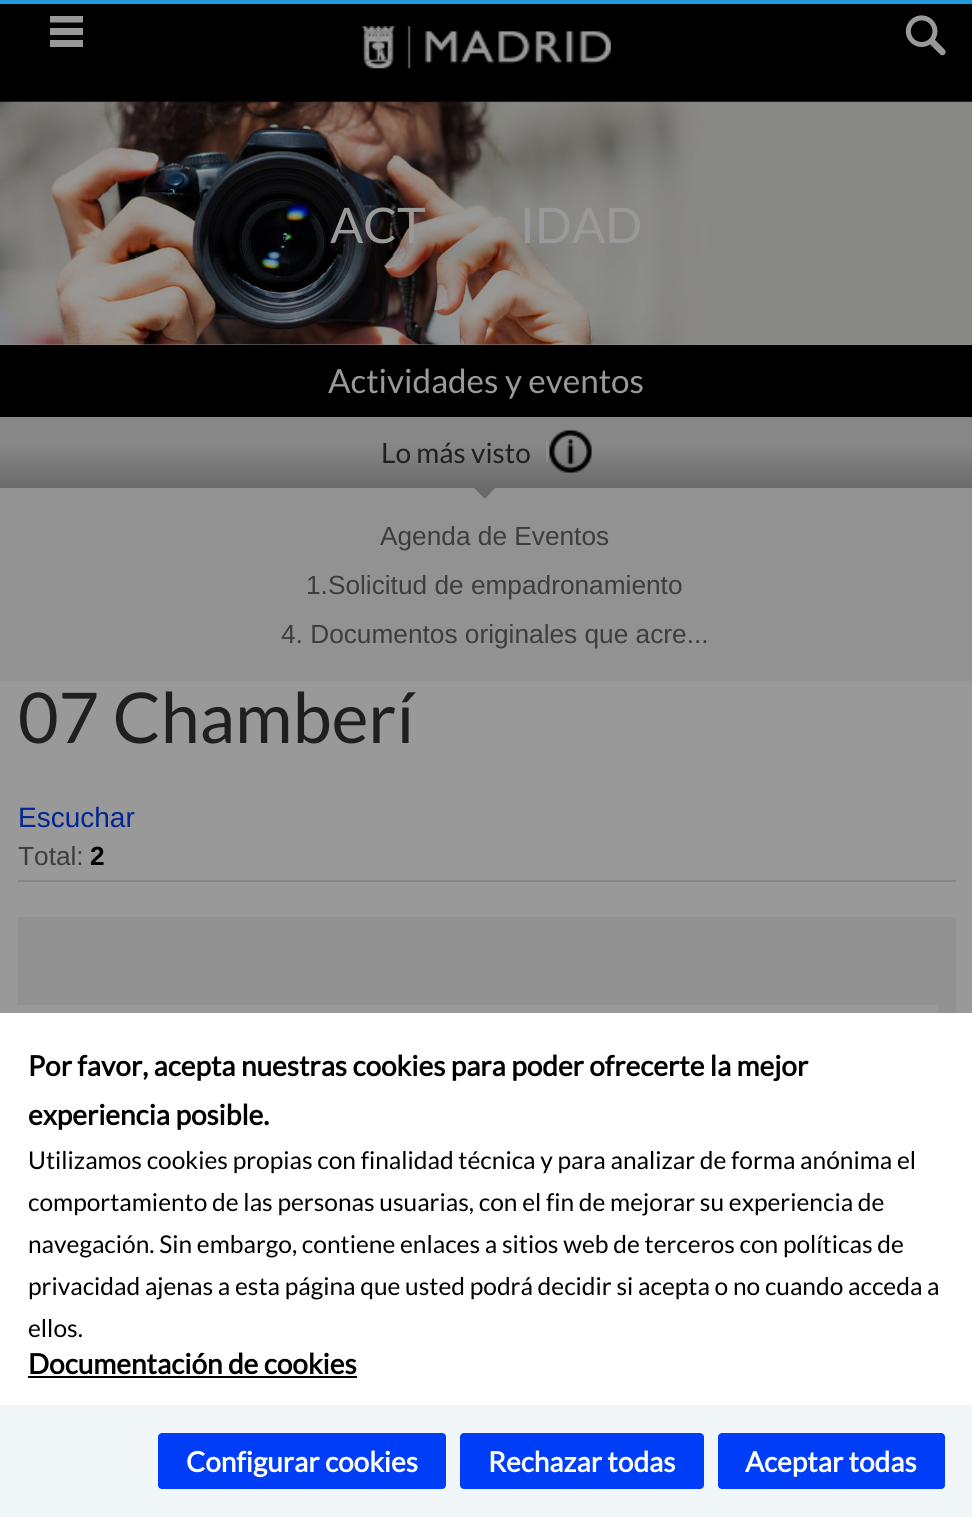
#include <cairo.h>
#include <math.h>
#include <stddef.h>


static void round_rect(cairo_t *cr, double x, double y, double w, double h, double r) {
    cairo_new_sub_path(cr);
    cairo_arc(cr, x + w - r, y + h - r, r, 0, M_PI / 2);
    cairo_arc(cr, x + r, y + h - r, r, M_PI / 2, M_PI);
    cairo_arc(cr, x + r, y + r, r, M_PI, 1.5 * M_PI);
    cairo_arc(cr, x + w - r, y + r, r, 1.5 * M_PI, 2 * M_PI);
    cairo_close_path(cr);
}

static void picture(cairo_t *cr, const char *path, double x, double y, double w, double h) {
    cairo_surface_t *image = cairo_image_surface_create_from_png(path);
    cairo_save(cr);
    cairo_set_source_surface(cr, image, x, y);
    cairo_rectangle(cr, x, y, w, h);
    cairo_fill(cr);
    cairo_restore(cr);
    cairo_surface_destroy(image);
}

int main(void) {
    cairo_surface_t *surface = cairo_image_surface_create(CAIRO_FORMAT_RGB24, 972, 1517);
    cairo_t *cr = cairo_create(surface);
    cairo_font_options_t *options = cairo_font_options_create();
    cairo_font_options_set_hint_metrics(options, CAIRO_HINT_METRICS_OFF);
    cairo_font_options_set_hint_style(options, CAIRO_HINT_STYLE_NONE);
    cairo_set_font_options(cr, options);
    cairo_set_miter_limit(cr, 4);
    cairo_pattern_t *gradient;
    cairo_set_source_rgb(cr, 0.6, 0.6, 0.6);
    cairo_paint(cr);
    cairo_set_source_rgb(cr, 0.133, 0.6, 0.867);
    cairo_rectangle(cr, 0, 0, 972, 4);
    cairo_fill(cr);
    cairo_set_source_rgb(cr, 0.569, 0.569, 0.569);
    cairo_rectangle(cr, 0, 344, 972, 1);
    cairo_fill(cr);
    cairo_set_source_rgb(cr, 0, 0, 0);
    cairo_rectangle(cr, 0, 4, 972, 98);
    cairo_fill(cr);
    cairo_set_source_rgb(cr, 0.6, 0.6, 0.6);
    cairo_new_path(cr);
    cairo_move_to(cr, 50, 16);
    cairo_line_to(cr, 50, 22.5);
    cairo_line_to(cr, 83, 22.5);
    cairo_line_to(cr, 83, 16);
    cairo_close_path(cr);
    cairo_move_to(cr, 50, 35);
    cairo_line_to(cr, 83, 35);
    cairo_line_to(cr, 83, 28);
    cairo_line_to(cr, 50, 28);
    cairo_close_path(cr);
    cairo_move_to(cr, 50, 47);
    cairo_line_to(cr, 83, 47);
    cairo_line_to(cr, 83, 40);
    cairo_line_to(cr, 50, 40);
    cairo_close_path(cr);
    cairo_fill(cr);
    picture(cr, "img1.png", 362, 26, 249, 43);
    picture(cr, "img2.png", 905, 15, 41, 41);
    picture(cr, "img3.png", 0, 101, 972, 244);
    cairo_select_font_face(cr, "Lato", CAIRO_FONT_SLANT_NORMAL, CAIRO_FONT_WEIGHT_NORMAL);
    cairo_set_font_size(cr, 49);
    cairo_move_to(cr, 330, 243);
    cairo_show_text(cr, "ACT");
    cairo_move_to(cr, 520, 243);
    cairo_show_text(cr, "IDAD");
    cairo_set_source_rgb(cr, 0, 0, 0);
    cairo_rectangle(cr, 0, 345, 972, 72);
    cairo_fill(cr);
    cairo_set_font_size(cr, 33.25);
    cairo_set_source_rgb(cr, 0.6, 0.6, 0.6);
    cairo_move_to(cr, 328, 393);
    cairo_show_text(cr, "Actividades y eventos");
    cairo_set_source_rgb(cr, 0.573, 0.573, 0.573);
    cairo_rectangle(cr, 0, 488, 972, 193);
    cairo_fill(cr);
    gradient = cairo_pattern_create_linear(487, 416, 487, 488);
    cairo_pattern_add_color_stop_rgba(gradient, 0, 0.533, 0.529, 0.529, 1);
    cairo_pattern_add_color_stop_rgba(gradient, 0.4, 0.533, 0.529, 0.529, 1);
    cairo_pattern_add_color_stop_rgba(gradient, 1, 0.416, 0.416, 0.416, 1);
    cairo_set_source(cr, gradient);
    cairo_pattern_destroy(gradient);
    cairo_rectangle(cr, 0, 417, 972, 71);
    cairo_fill(cr);
    cairo_set_font_size(cr, 28);
    cairo_set_source_rgb(cr, 0.122, 0.122, 0.122);
    cairo_move_to(cr, 381, 463);
    cairo_show_text(cr, "Lo más visto");
    picture(cr, "img4.png", 546, 429, 46, 45);
    cairo_set_source_rgb(cr, 0.416, 0.416, 0.416);
    cairo_new_path(cr);
    cairo_move_to(cr, 474, 488);
    cairo_line_to(cr, 495, 488);
    cairo_line_to(cr, 485, 499);
    cairo_close_path(cr);
    cairo_fill(cr);
    cairo_select_font_face(cr, "Liberation Sans", CAIRO_FONT_SLANT_NORMAL, CAIRO_FONT_WEIGHT_NORMAL);
    cairo_set_font_size(cr, 26.25);
    cairo_set_source_rgb(cr, 0.239, 0.239, 0.239);
    cairo_move_to(cr, 380, 545);
    cairo_show_text(cr, "Agenda de Eventos");
    cairo_move_to(cr, 306, 594);
    cairo_show_text(cr, "1.Solicitud de empadronamiento");
    cairo_move_to(cr, 281, 643);
    cairo_show_text(cr, "4. Documentos originales que acre...");
    cairo_select_font_face(cr, "Lato", CAIRO_FONT_SLANT_NORMAL, CAIRO_FONT_WEIGHT_NORMAL);
    cairo_set_font_size(cr, 70);
    cairo_set_source_rgb(cr, 0.122, 0.122, 0.122);
    cairo_move_to(cr, 18, 743);
    cairo_show_text(cr, "07 Chamberí");
    cairo_select_font_face(cr, "Liberation Sans", CAIRO_FONT_SLANT_NORMAL, CAIRO_FONT_WEIGHT_NORMAL);
    cairo_set_font_size(cr, 28);
    cairo_set_source_rgb(cr, 0, 0.145, 0.58);
    cairo_move_to(cr, 18, 827);
    cairo_show_text(cr, "Escuchar");
    cairo_set_source_rgb(cr, 0.525, 0.525, 0.525);
    cairo_rectangle(cr, 18, 880, 938, 2);
    cairo_fill(cr);
    cairo_set_font_size(cr, 26.25);
    cairo_set_source_rgb(cr, 0.239, 0.239, 0.239);
    cairo_move_to(cr, 18, 865);
    cairo_show_text(cr, "Total:");
    cairo_select_font_face(cr, "Liberation Sans", CAIRO_FONT_SLANT_NORMAL, CAIRO_FONT_WEIGHT_BOLD);
    cairo_set_source_rgb(cr, 0, 0, 0);
    cairo_move_to(cr, 90, 865);
    cairo_show_text(cr, "2");
    cairo_set_source_rgb(cr, 0.569, 0.569, 0.569);
    cairo_rectangle(cr, 18, 917, 938, 96);
    cairo_fill(cr);
    cairo_set_source_rgb(cr, 0.6, 0.6, 0.6);
    cairo_rectangle(cr, 18, 1005, 920, 8);
    cairo_fill(cr);
    cairo_set_source_rgb(cr, 1, 1, 1);
    cairo_rectangle(cr, 0, 1013, 972, 392);
    cairo_fill(cr);
    cairo_select_font_face(cr, "Lato", CAIRO_FONT_SLANT_NORMAL, CAIRO_FONT_WEIGHT_BOLD);
    cairo_set_font_size(cr, 28);
    cairo_set_source_rgb(cr, 0, 0, 0);
    cairo_move_to(cr, 28, 1076);
    cairo_show_text(cr, "Por favor, acepta nuestras cookies para poder ofrecerte la mejor");
    cairo_move_to(cr, 28, 1125);
    cairo_show_text(cr, "experiencia posible.");
    cairo_select_font_face(cr, "Lato", CAIRO_FONT_SLANT_NORMAL, CAIRO_FONT_WEIGHT_NORMAL);
    cairo_set_font_size(cr, 24.5);
    cairo_move_to(cr, 28, 1169);
    cairo_show_text(cr, "Utilizamos cookies propias con finalidad técnica y para analizar de forma anónima el");
    cairo_move_to(cr, 28, 1211);
    cairo_show_text(cr, "comportamiento de las personas usuarias, con el fin de mejorar su experiencia de");
    cairo_move_to(cr, 28, 1253);
    cairo_show_text(cr, "navegación. Sin embargo, contiene enlaces a sitios web de terceros con políticas de");
    cairo_move_to(cr, 28, 1295);
    cairo_show_text(cr, "privacidad ajenas a esta página que usted podrá decidir si acepta o no cuando acceda a");
    cairo_move_to(cr, 28, 1337);
    cairo_show_text(cr, "ellos.");
    cairo_select_font_face(cr, "Lato", CAIRO_FONT_SLANT_NORMAL, CAIRO_FONT_WEIGHT_BOLD);
    cairo_set_font_size(cr, 28);
    cairo_move_to(cr, 28, 1374);
    cairo_show_text(cr, "Documentación de cookies");
    cairo_rectangle(cr, 28, 1376, 329, 2);
    cairo_fill(cr);
    cairo_set_source_rgb(cr, 0.945, 0.961, 0.976);
    cairo_rectangle(cr, 0, 1405, 972, 112);
    cairo_fill(cr);
    cairo_set_source_rgb(cr, 0, 0.239, 0.965);
    round_rect(cr, 158, 1433, 288, 56, 4);
    cairo_fill(cr);
    cairo_set_source_rgb(cr, 1, 1, 1);
    cairo_move_to(cr, 186, 1472);
    cairo_show_text(cr, "Configurar cookies");
    cairo_set_source_rgb(cr, 0, 0.239, 0.965);
    round_rect(cr, 460, 1433, 244, 56, 4);
    cairo_fill(cr);
    cairo_set_source_rgb(cr, 1, 1, 1);
    cairo_move_to(cr, 488, 1472);
    cairo_show_text(cr, "Rechazar todas");
    cairo_set_source_rgb(cr, 0, 0.239, 0.965);
    round_rect(cr, 718, 1433, 227, 56, 4);
    cairo_fill(cr);
    cairo_set_source_rgb(cr, 1, 1, 1);
    cairo_move_to(cr, 745, 1472);
    cairo_show_text(cr, "Aceptar todas");
    cairo_surface_write_to_png(surface, "page.png");
    cairo_font_options_destroy(options);
    cairo_destroy(cr);
    cairo_surface_destroy(surface);
    return 0;
}
